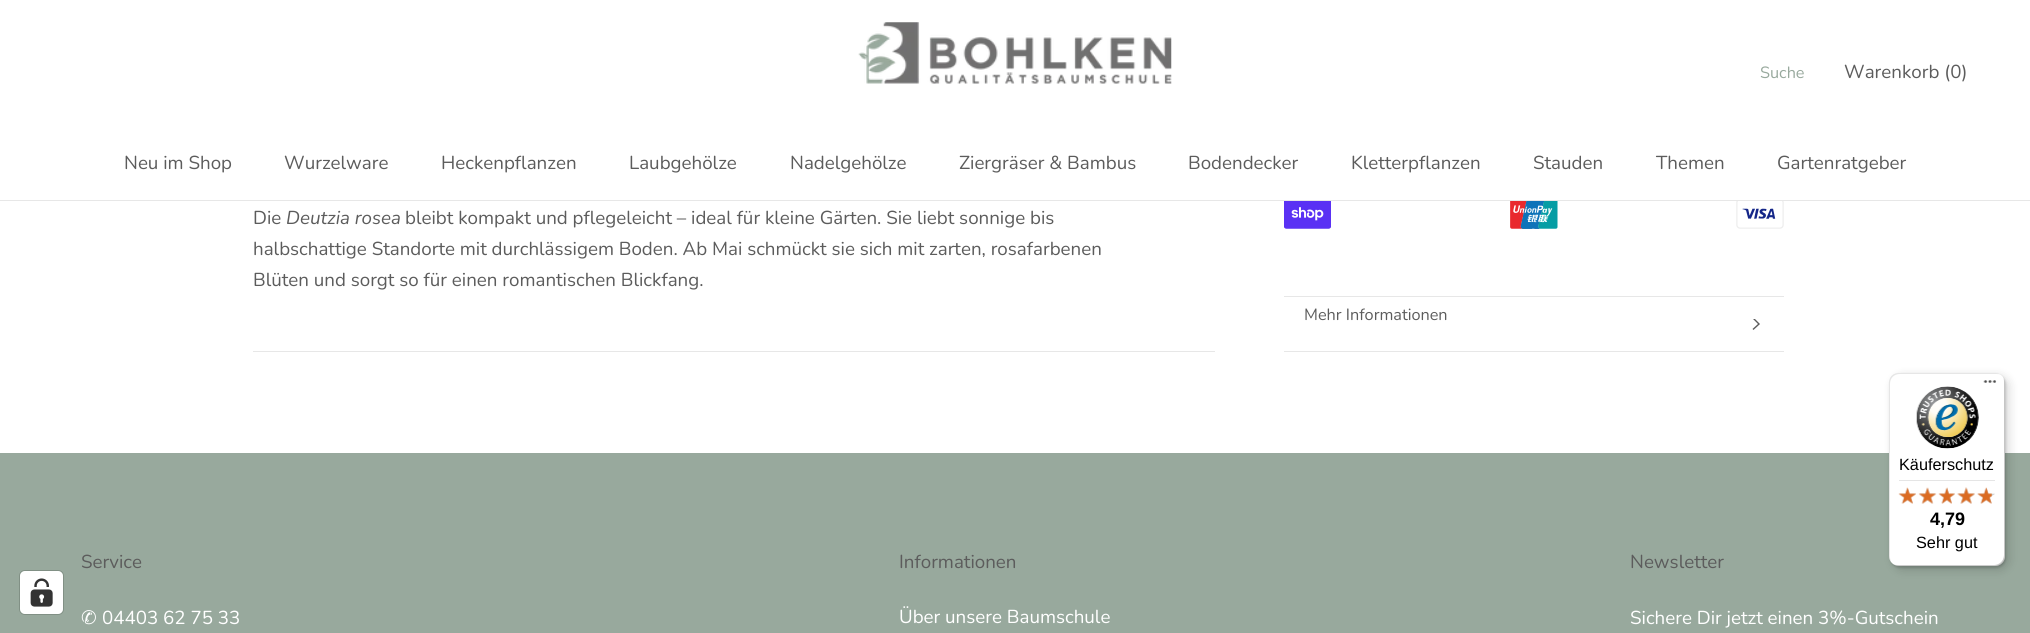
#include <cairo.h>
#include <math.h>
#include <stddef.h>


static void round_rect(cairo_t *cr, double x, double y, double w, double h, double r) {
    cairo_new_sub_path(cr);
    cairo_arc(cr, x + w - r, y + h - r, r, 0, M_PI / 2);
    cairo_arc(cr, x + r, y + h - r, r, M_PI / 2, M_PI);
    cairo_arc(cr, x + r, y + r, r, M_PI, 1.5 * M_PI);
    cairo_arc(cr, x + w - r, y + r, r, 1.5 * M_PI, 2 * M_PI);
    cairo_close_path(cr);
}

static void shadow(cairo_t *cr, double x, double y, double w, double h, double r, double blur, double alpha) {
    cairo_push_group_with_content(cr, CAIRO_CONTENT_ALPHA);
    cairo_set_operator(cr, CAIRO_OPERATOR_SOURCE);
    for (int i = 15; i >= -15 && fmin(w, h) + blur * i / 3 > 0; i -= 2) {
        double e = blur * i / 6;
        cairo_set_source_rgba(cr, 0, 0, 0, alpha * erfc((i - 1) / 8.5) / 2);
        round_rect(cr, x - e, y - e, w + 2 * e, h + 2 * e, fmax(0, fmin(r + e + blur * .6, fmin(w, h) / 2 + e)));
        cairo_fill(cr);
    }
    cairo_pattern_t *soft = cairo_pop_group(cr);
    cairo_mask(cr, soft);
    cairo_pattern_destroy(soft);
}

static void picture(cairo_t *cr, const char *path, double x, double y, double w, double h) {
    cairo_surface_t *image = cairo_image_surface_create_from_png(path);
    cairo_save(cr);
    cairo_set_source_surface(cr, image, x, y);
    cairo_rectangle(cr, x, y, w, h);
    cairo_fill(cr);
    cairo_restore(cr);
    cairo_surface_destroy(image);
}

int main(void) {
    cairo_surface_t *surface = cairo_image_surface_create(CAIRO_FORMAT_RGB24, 2030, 633);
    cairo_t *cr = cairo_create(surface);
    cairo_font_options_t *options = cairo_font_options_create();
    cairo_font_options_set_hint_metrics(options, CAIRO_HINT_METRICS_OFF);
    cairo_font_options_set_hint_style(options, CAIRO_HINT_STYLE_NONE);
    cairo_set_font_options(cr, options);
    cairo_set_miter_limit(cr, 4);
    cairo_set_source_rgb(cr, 1, 1, 1);
    cairo_paint(cr);
    cairo_set_source_rgb(cr, 0.906, 0.906, 0.906);
    cairo_rectangle(cr, 0, 200, 2030, 1);
    cairo_fill(cr);
    picture(cr, "img1.png", 858, 22, 314, 62);
    cairo_select_font_face(cr, "Nunito ExtraLight", CAIRO_FONT_SLANT_NORMAL, CAIRO_FONT_WEIGHT_NORMAL);
    cairo_set_font_size(cr, 16.25);
    cairo_set_source_rgb(cr, 0.596, 0.663, 0.616);
    cairo_move_to(cr, 1760, 78);
    cairo_show_text(cr, "Suche");
    cairo_set_font_size(cr, 18.75);
    cairo_set_source_rgb(cr, 0.361, 0.361, 0.361);
    cairo_move_to(cr, 1844, 78);
    cairo_show_text(cr, "Warenkorb (0)");
    cairo_move_to(cr, 124, 169);
    cairo_show_text(cr, "Neu im Shop");
    cairo_move_to(cr, 284, 169);
    cairo_show_text(cr, "Wurzelware");
    cairo_move_to(cr, 441, 169);
    cairo_show_text(cr, "Heckenpflanzen");
    cairo_move_to(cr, 629, 169);
    cairo_show_text(cr, "Laubgehölze");
    cairo_move_to(cr, 790, 169);
    cairo_show_text(cr, "Nadelgehölze");
    cairo_move_to(cr, 959, 169);
    cairo_show_text(cr, "Ziergräser & Bambus");
    cairo_move_to(cr, 1188, 169);
    cairo_show_text(cr, "Bodendecker");
    cairo_move_to(cr, 1351, 169);
    cairo_show_text(cr, "Kletterpflanzen");
    cairo_move_to(cr, 1533, 169);
    cairo_show_text(cr, "Stauden");
    cairo_move_to(cr, 1656, 169);
    cairo_show_text(cr, "Themen");
    cairo_move_to(cr, 1777, 169);
    cairo_show_text(cr, "Gartenratgeber");
    cairo_set_source_rgb(cr, 0.906, 0.906, 0.906);
    cairo_rectangle(cr, 253, 351, 962, 1);
    cairo_fill(cr);
    cairo_set_source_rgb(cr, 0.361, 0.361, 0.361);
    cairo_move_to(cr, 253, 224);
    cairo_show_text(cr, "Die");
    cairo_select_font_face(cr, "Nunito", CAIRO_FONT_SLANT_ITALIC, CAIRO_FONT_WEIGHT_NORMAL);
    cairo_move_to(cr, 286, 224);
    cairo_show_text(cr, "Deutzia rosea");
    cairo_select_font_face(cr, "Nunito ExtraLight", CAIRO_FONT_SLANT_NORMAL, CAIRO_FONT_WEIGHT_NORMAL);
    cairo_move_to(cr, 405, 224);
    cairo_show_text(cr, "bleibt kompakt und pflegeleicht – ideal für kleine Gärten. Sie liebt sonnige bis");
    cairo_move_to(cr, 253, 255);
    cairo_show_text(cr, "halbschattige Standorte mit durchlässigem Boden. Ab Mai schmückt sie sich mit zarten, rosafarbenen");
    cairo_move_to(cr, 253, 286);
    cairo_show_text(cr, "Blüten und sorgt so für einen romantischen Blickfang.");
    picture(cr, "img2.png", 1284, 201, 47, 28);
    picture(cr, "img3.png", 1510, 201, 48, 28);
    picture(cr, "img4.png", 1736, 201, 48, 28);
    cairo_set_source_rgb(cr, 0.906, 0.906, 0.906);
    cairo_rectangle(cr, 1284, 296, 500, 1);
    cairo_fill(cr);
    cairo_rectangle(cr, 1284, 351, 500, 1);
    cairo_fill(cr);
    cairo_set_font_size(cr, 16.25);
    cairo_set_source_rgb(cr, 0.361, 0.361, 0.361);
    cairo_move_to(cr, 1304, 320);
    cairo_show_text(cr, "Mehr Informationen");
    cairo_save(cr);
    cairo_rectangle(cr, 1751, 319, 10, 12);
    cairo_clip(cr);
    cairo_new_path(cr);
    cairo_move_to(cr, 1753.5, 329);
    cairo_line_to(cr, 1759, 324);
    cairo_line_to(cr, 1753.5, 318.5);
    cairo_set_line_width(cr, 1.4);
    cairo_set_line_cap(cr, CAIRO_LINE_CAP_SQUARE);
    cairo_stroke(cr);
    cairo_restore(cr);
    cairo_set_source_rgb(cr, 0.596, 0.663, 0.616);
    cairo_rectangle(cr, 0, 453, 2030, 180);
    cairo_fill(cr);
    cairo_set_font_size(cr, 18.75);
    cairo_set_source_rgb(cr, 0.361, 0.361, 0.361);
    cairo_move_to(cr, 81, 568);
    cairo_show_text(cr, "Service");
    cairo_select_font_face(cr, "DejaVu Sans", CAIRO_FONT_SLANT_NORMAL, CAIRO_FONT_WEIGHT_NORMAL);
    cairo_set_source_rgb(cr, 1, 1, 1);
    cairo_move_to(cr, 81, 624);
    cairo_show_text(cr, "✆");
    cairo_select_font_face(cr, "Nunito ExtraLight", CAIRO_FONT_SLANT_NORMAL, CAIRO_FONT_WEIGHT_NORMAL);
    cairo_move_to(cr, 102, 624);
    cairo_show_text(cr, "04403 62 75 33");
    cairo_set_source_rgb(cr, 0.361, 0.361, 0.361);
    cairo_move_to(cr, 899, 568);
    cairo_show_text(cr, "Informationen");
    cairo_set_source_rgb(cr, 1, 1, 1);
    cairo_move_to(cr, 899, 623);
    cairo_show_text(cr, "Über unsere Baumschule");
    cairo_set_source_rgb(cr, 0.361, 0.361, 0.361);
    cairo_move_to(cr, 1630, 568);
    cairo_show_text(cr, "Newsletter");
    cairo_set_source_rgb(cr, 1, 1, 1);
    cairo_move_to(cr, 1630, 624);
    cairo_show_text(cr, "Sichere Dir jetzt einen 3%-Gutschein");
    cairo_set_source_rgb(cr, 0, 0, 0);
    shadow(cr, 1893, 376, 116, 194, 10, 5, 0.15);
    shadow(cr, 1890, 374, 116, 194, 10, 1, 0.15);
    cairo_set_source_rgb(cr, 1, 1, 1);
    round_rect(cr, 1889, 373, 116, 193, 10);
    cairo_fill(cr);
    cairo_set_source_rgba(cr, 0, 0, 0, 0.1);
    cairo_new_path(cr);
    cairo_move_to(cr, 1900, 374);
    cairo_line_to(cr, 1996, 374);
    cairo_curve_to(cr, 1998, 374, 2000, 374, 2001, 375);
    cairo_curve_to(cr, 2000, 374, 1997, 373, 1995, 373);
    cairo_line_to(cr, 1899, 373);
    cairo_curve_to(cr, 1893, 373, 1889, 377, 1889, 383);
    cairo_line_to(cr, 1889, 556);
    cairo_curve_to(cr, 1889, 558, 1890, 560, 1891, 562);
    cairo_line_to(cr, 1890, 558);
    cairo_line_to(cr, 1890, 384);
    cairo_curve_to(cr, 1890, 378, 1894, 374, 1900, 374);
    cairo_close_path(cr);
    cairo_fill(cr);
    cairo_set_source_rgba(cr, 0, 0, 0, 0.2);
    cairo_new_path(cr);
    cairo_move_to(cr, 1893, 564);
    cairo_curve_to(cr, 1894, 565, 1897, 566, 1899, 566);
    cairo_line_to(cr, 1995, 566);
    cairo_curve_to(cr, 2001, 566, 2005, 562, 2005, 556);
    cairo_line_to(cr, 2005, 383);
    cairo_curve_to(cr, 2005, 381, 2004, 379, 2003, 377);
    cairo_curve_to(cr, 2004, 378, 2004, 380, 2004, 381);
    cairo_line_to(cr, 2004, 555);
    cairo_curve_to(cr, 2004, 561, 1999, 565, 1994, 565);
    cairo_line_to(cr, 1898, 565);
    cairo_curve_to(cr, 1896, 565, 1894, 565, 1893, 564);
    cairo_close_path(cr);
    cairo_fill(cr);
    cairo_set_source_rgba(cr, 0.196, 0.196, 0.196, 0.2);
    cairo_new_path(cr);
    cairo_move_to(cr, 1994, 566);
    cairo_line_to(cr, 1995, 566);
    cairo_curve_to(cr, 2001, 566, 2005, 562, 2005, 556);
    cairo_line_to(cr, 2005, 383);
    cairo_curve_to(cr, 2005, 381, 2004, 378, 2003, 377);
    cairo_curve_to(cr, 2004, 378, 2004, 380, 2004, 382);
    cairo_line_to(cr, 2004, 556);
    cairo_curve_to(cr, 2004, 561, 2000, 566, 1994, 566);
    cairo_close_path(cr);
    cairo_fill(cr);
    cairo_set_source_rgba(cr, 1, 1, 1, 0.3);
    cairo_new_path(cr);
    cairo_move_to(cr, 1994, 566);
    cairo_line_to(cr, 1995, 566);
    cairo_curve_to(cr, 2001, 566, 2005, 562, 2005, 556);
    cairo_line_to(cr, 2005, 383);
    cairo_curve_to(cr, 2005, 381, 2004, 378, 2003, 377);
    cairo_curve_to(cr, 2004, 378, 2004, 380, 2004, 382);
    cairo_line_to(cr, 2004, 556);
    cairo_curve_to(cr, 2004, 561, 2000, 566, 1994, 566);
    cairo_close_path(cr);
    cairo_fill(cr);
    picture(cr, "img5.png", 1983, 380, 14, 3);
    picture(cr, "img6.png", 1916, 386, 63, 63);
    cairo_select_font_face(cr, "Liberation Sans", CAIRO_FONT_SLANT_NORMAL, CAIRO_FONT_WEIGHT_NORMAL);
    cairo_set_font_size(cr, 16.25);
    cairo_set_source_rgb(cr, 0, 0, 0);
    cairo_move_to(cr, 1899, 470);
    cairo_show_text(cr, "Käuferschutz");
    cairo_set_source_rgb(cr, 0.898, 0.898, 0.898);
    cairo_rectangle(cr, 1899, 480, 96, 1);
    cairo_fill(cr);
    picture(cr, "img12.png", 1899, 488, 17, 16);
    picture(cr, "img7.png", 1898, 487, 18, 17);
    picture(cr, "img13.png", 1919, 488, 17, 16);
    picture(cr, "img8.png", 1918, 487, 19, 17);
    picture(cr, "img14.png", 1939, 488, 16, 16);
    picture(cr, "img9.png", 1938, 487, 17, 17);
    picture(cr, "img15.png", 1957, 487, 18, 17);
    picture(cr, "img10.png", 1957, 487, 18, 17);
    picture(cr, "img16.png", 1977, 488, 18, 16);
    picture(cr, "img11.png", 1977, 487, 15, 17);
    cairo_select_font_face(cr, "Liberation Sans", CAIRO_FONT_SLANT_NORMAL, CAIRO_FONT_WEIGHT_BOLD);
    cairo_set_font_size(cr, 18);
    cairo_set_source_rgb(cr, 0, 0, 0);
    cairo_move_to(cr, 1930, 525);
    cairo_show_text(cr, "4,79");
    cairo_select_font_face(cr, "Liberation Sans", CAIRO_FONT_SLANT_NORMAL, CAIRO_FONT_WEIGHT_NORMAL);
    cairo_set_font_size(cr, 16.25);
    cairo_move_to(cr, 1916, 548);
    cairo_show_text(cr, "Sehr gut");
    round_rect(cr, 19.5, 570.5, 44, 44, 5.5);
    cairo_set_source_rgb(cr, 0.506, 0.565, 0.522);
    cairo_set_line_width(cr, 1);
    cairo_stroke(cr);
    cairo_set_source_rgb(cr, 1, 1, 1);
    round_rect(cr, 20, 571, 43, 43, 5);
    cairo_fill(cr);
    picture(cr, "img17.png", 30, 578, 23, 29);
    cairo_surface_write_to_png(surface, "page.png");
    cairo_font_options_destroy(options);
    cairo_destroy(cr);
    cairo_surface_destroy(surface);
    return 0;
}
